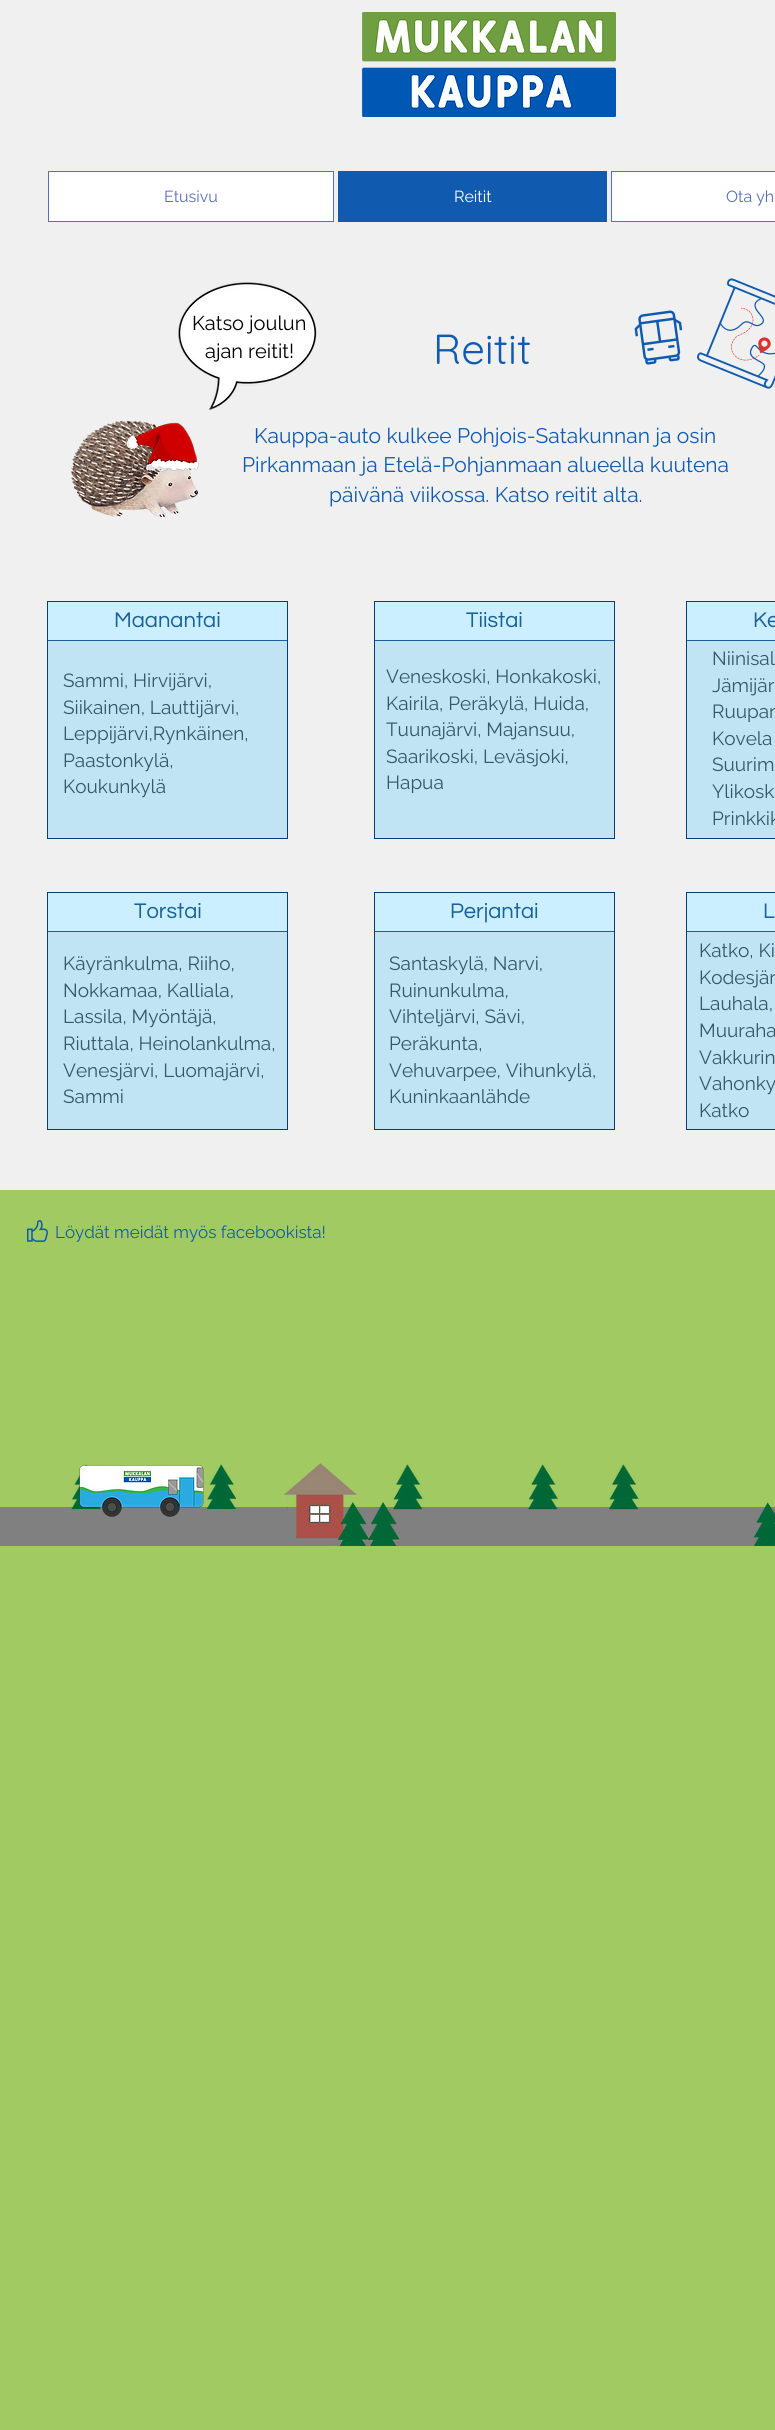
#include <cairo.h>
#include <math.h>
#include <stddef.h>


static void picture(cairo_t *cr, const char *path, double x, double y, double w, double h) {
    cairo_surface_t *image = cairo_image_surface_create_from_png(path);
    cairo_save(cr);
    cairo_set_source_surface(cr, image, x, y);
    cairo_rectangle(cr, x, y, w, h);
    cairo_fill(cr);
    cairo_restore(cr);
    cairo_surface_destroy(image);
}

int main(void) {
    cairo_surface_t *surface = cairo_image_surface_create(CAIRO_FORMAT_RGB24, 775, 2430);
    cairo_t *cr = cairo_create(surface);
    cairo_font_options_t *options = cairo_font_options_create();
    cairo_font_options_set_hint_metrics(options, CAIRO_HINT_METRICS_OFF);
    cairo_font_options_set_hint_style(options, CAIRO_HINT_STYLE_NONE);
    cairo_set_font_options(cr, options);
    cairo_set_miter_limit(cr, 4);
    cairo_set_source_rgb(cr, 0.631, 0.792, 0.388);
    cairo_paint(cr);
    cairo_set_source_rgb(cr, 0.941, 0.941, 0.941);
    cairo_rectangle(cr, 0, 0, 775, 1190);
    cairo_fill(cr);
    picture(cr, "img1.png", 362, 12, 254, 105);
    cairo_set_source_rgb(cr, 1, 1, 1);
    cairo_rectangle(cr, 48.5, 171.5, 285, 50);
    cairo_fill_preserve(cr);
    cairo_set_source_rgb(cr, 0.337, 0.435, 0.722);
    cairo_set_line_width(cr, 1);
    cairo_stroke(cr);
    cairo_select_font_face(cr, "Raleway", CAIRO_FONT_SLANT_NORMAL, CAIRO_FONT_WEIGHT_NORMAL);
    cairo_set_font_size(cr, 16);
    cairo_move_to(cr, 164, 202);
    cairo_show_text(cr, "Etusivu");
    cairo_set_source_rgb(cr, 0.063, 0.357, 0.69);
    cairo_rectangle(cr, 338, 171, 269, 51);
    cairo_fill(cr);
    cairo_set_source_rgb(cr, 1, 1, 1);
    cairo_move_to(cr, 454, 202);
    cairo_show_text(cr, "Reitit");
    cairo_rectangle(cr, 611.5, 171.5, 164, 50);
    cairo_fill_preserve(cr);
    cairo_set_source_rgb(cr, 0.337, 0.435, 0.722);
    cairo_stroke(cr);
    cairo_move_to(cr, 726, 202);
    cairo_show_text(cr, "Ota yh");
    picture(cr, "img2.png", 178, 281, 139, 130);
    picture(cr, "img3.png", 634, 310, 49, 55);
    picture(cr, "img4.png", 697, 278, 78, 111);
    cairo_set_font_size(cr, 20);
    cairo_set_source_rgb(cr, 0, 0, 0);
    cairo_move_to(cr, 192, 330);
    cairo_show_text(cr, "Katso joulun");
    cairo_move_to(cr, 205, 358);
    cairo_show_text(cr, "ajan reitit!");
    cairo_select_font_face(cr, "Quicksand", CAIRO_FONT_SLANT_NORMAL, CAIRO_FONT_WEIGHT_NORMAL);
    cairo_set_font_size(cr, 42);
    cairo_set_source_rgb(cr, 0.063, 0.357, 0.69);
    cairo_move_to(cr, 433, 364);
    cairo_show_text(cr, "Reitit");
    picture(cr, "img5.png", 71, 421, 127, 96);
    picture(cr, "img6.png", 126, 422, 73, 50);
    cairo_select_font_face(cr, "Raleway", CAIRO_FONT_SLANT_NORMAL, CAIRO_FONT_WEIGHT_NORMAL);
    cairo_set_font_size(cr, 21);
    cairo_move_to(cr, 254, 443);
    cairo_show_text(cr, "Kauppa-auto kulkee Pohjois-Satakunnan ja osin");
    cairo_move_to(cr, 242, 472);
    cairo_show_text(cr, "Pirkanmaan ja Etelä-Pohjanmaan alueella kuutena");
    cairo_move_to(cr, 329, 502);
    cairo_show_text(cr, "päivänä viikossa. Katso reitit alta.");
    cairo_set_source_rgb(cr, 0.796, 0.937, 1);
    cairo_rectangle(cr, 47.5, 601.5, 240, 39);
    cairo_fill_preserve(cr);
    cairo_set_source_rgb(cr, 0.098, 0.38, 0.604);
    cairo_stroke(cr);
    cairo_set_source_rgb(cr, 0.753, 0.894, 0.957);
    cairo_rectangle(cr, 48, 641, 239, 197);
    cairo_fill(cr);
    cairo_rectangle(cr, 47.5, 601.5, 240, 237);
    cairo_set_source_rgb(cr, 0.043, 0.239, 0.459);
    cairo_stroke(cr);
    cairo_set_source_rgb(cr, 0.796, 0.937, 1);
    cairo_rectangle(cr, 374.5, 601.5, 240, 39);
    cairo_fill_preserve(cr);
    cairo_set_source_rgb(cr, 0.098, 0.38, 0.604);
    cairo_stroke(cr);
    cairo_set_source_rgb(cr, 0.753, 0.894, 0.957);
    cairo_rectangle(cr, 375, 641, 239, 197);
    cairo_fill(cr);
    cairo_rectangle(cr, 374.5, 601.5, 240, 237);
    cairo_set_source_rgb(cr, 0.043, 0.239, 0.459);
    cairo_stroke(cr);
    cairo_set_source_rgb(cr, 0.796, 0.937, 1);
    cairo_rectangle(cr, 686.5, 601.5, 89, 39);
    cairo_fill_preserve(cr);
    cairo_set_source_rgb(cr, 0.098, 0.38, 0.604);
    cairo_stroke(cr);
    cairo_set_source_rgb(cr, 0.753, 0.894, 0.957);
    cairo_rectangle(cr, 687, 641, 88, 197);
    cairo_fill(cr);
    cairo_rectangle(cr, 686.5, 601.5, 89, 237);
    cairo_set_source_rgb(cr, 0.043, 0.239, 0.459);
    cairo_stroke(cr);
    cairo_select_font_face(cr, "Questrial", CAIRO_FONT_SLANT_NORMAL, CAIRO_FONT_WEIGHT_NORMAL);
    cairo_set_font_size(cr, 22);
    cairo_set_source_rgb(cr, 0.098, 0.38, 0.604);
    cairo_move_to(cr, 114, 627);
    cairo_show_text(cr, "Maanantai");
    cairo_move_to(cr, 466, 627);
    cairo_show_text(cr, "Tiistai");
    cairo_move_to(cr, 753, 627);
    cairo_show_text(cr, "Ke");
    cairo_select_font_face(cr, "Raleway", CAIRO_FONT_SLANT_NORMAL, CAIRO_FONT_WEIGHT_NORMAL);
    cairo_set_font_size(cr, 19);
    cairo_set_source_rgb(cr, 0.204, 0.345, 0.408);
    cairo_move_to(cr, 63, 687);
    cairo_show_text(cr, "Sammi, Hirvijärvi,");
    cairo_move_to(cr, 63, 714);
    cairo_show_text(cr, "Siikainen, Lauttijärvi,");
    cairo_move_to(cr, 63, 740);
    cairo_show_text(cr, "Leppijärvi,Rynkäinen,");
    cairo_move_to(cr, 63, 767);
    cairo_show_text(cr, "Paastonkylä,");
    cairo_move_to(cr, 63, 793);
    cairo_show_text(cr, "Koukunkylä");
    cairo_move_to(cr, 386, 683);
    cairo_show_text(cr, "Veneskoski, Honkakoski,");
    cairo_move_to(cr, 386, 710);
    cairo_show_text(cr, "Kairila, Peräkylä, Huida,");
    cairo_move_to(cr, 386, 736);
    cairo_show_text(cr, "Tuunajärvi, Majansuu,");
    cairo_move_to(cr, 386, 763);
    cairo_show_text(cr, "Saarikoski, Leväsjoki,");
    cairo_move_to(cr, 386, 789);
    cairo_show_text(cr, "Hapua");
    cairo_move_to(cr, 712, 665);
    cairo_show_text(cr, "Niinisal");
    cairo_move_to(cr, 712, 692);
    cairo_show_text(cr, "Jämijär");
    cairo_move_to(cr, 712, 718);
    cairo_show_text(cr, "Ruupan");
    cairo_move_to(cr, 712, 745);
    cairo_show_text(cr, "Kovela");
    cairo_move_to(cr, 712, 771);
    cairo_show_text(cr, "Suurim");
    cairo_move_to(cr, 712, 798);
    cairo_show_text(cr, "Ylikosk");
    cairo_move_to(cr, 712, 825);
    cairo_show_text(cr, "Prinkkik");
    cairo_set_source_rgb(cr, 0.796, 0.937, 1);
    cairo_rectangle(cr, 47.5, 892.5, 240, 39);
    cairo_fill_preserve(cr);
    cairo_set_source_rgb(cr, 0.098, 0.38, 0.604);
    cairo_stroke(cr);
    cairo_set_source_rgb(cr, 0.753, 0.894, 0.957);
    cairo_rectangle(cr, 48, 932, 239, 197);
    cairo_fill(cr);
    cairo_rectangle(cr, 47.5, 892.5, 240, 237);
    cairo_set_source_rgb(cr, 0.043, 0.239, 0.459);
    cairo_stroke(cr);
    cairo_set_source_rgb(cr, 0.796, 0.937, 1);
    cairo_rectangle(cr, 374.5, 892.5, 240, 39);
    cairo_fill_preserve(cr);
    cairo_set_source_rgb(cr, 0.098, 0.38, 0.604);
    cairo_stroke(cr);
    cairo_set_source_rgb(cr, 0.753, 0.894, 0.957);
    cairo_rectangle(cr, 375, 932, 239, 197);
    cairo_fill(cr);
    cairo_rectangle(cr, 374.5, 892.5, 240, 237);
    cairo_set_source_rgb(cr, 0.043, 0.239, 0.459);
    cairo_stroke(cr);
    cairo_set_source_rgb(cr, 0.796, 0.937, 1);
    cairo_rectangle(cr, 686.5, 892.5, 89, 39);
    cairo_fill_preserve(cr);
    cairo_set_source_rgb(cr, 0.098, 0.38, 0.604);
    cairo_stroke(cr);
    cairo_set_source_rgb(cr, 0.753, 0.894, 0.957);
    cairo_rectangle(cr, 687, 932, 88, 197);
    cairo_fill(cr);
    cairo_rectangle(cr, 686.5, 892.5, 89, 237);
    cairo_set_source_rgb(cr, 0.043, 0.239, 0.459);
    cairo_stroke(cr);
    cairo_select_font_face(cr, "Questrial", CAIRO_FONT_SLANT_NORMAL, CAIRO_FONT_WEIGHT_NORMAL);
    cairo_set_font_size(cr, 22);
    cairo_set_source_rgb(cr, 0.098, 0.38, 0.604);
    cairo_move_to(cr, 134, 918);
    cairo_show_text(cr, "Torstai");
    cairo_move_to(cr, 450, 918);
    cairo_show_text(cr, "Perjantai");
    cairo_move_to(cr, 763, 918);
    cairo_show_text(cr, "L");
    cairo_select_font_face(cr, "Raleway", CAIRO_FONT_SLANT_NORMAL, CAIRO_FONT_WEIGHT_NORMAL);
    cairo_set_font_size(cr, 19);
    cairo_set_source_rgb(cr, 0.204, 0.345, 0.408);
    cairo_move_to(cr, 63, 970);
    cairo_show_text(cr, "Käyränkulma, Riiho,");
    cairo_move_to(cr, 63, 997);
    cairo_show_text(cr, "Nokkamaa, Kalliala,");
    cairo_move_to(cr, 63, 1023);
    cairo_show_text(cr, "Lassila, Myöntäjä,");
    cairo_move_to(cr, 63, 1050);
    cairo_show_text(cr, "Riuttala, Heinolankulma,");
    cairo_move_to(cr, 63, 1077);
    cairo_show_text(cr, "Venesjärvi, Luomajärvi,");
    cairo_move_to(cr, 63, 1103);
    cairo_show_text(cr, "Sammi");
    cairo_move_to(cr, 389, 970);
    cairo_show_text(cr, "Santaskylä, Narvi,");
    cairo_move_to(cr, 389, 997);
    cairo_show_text(cr, "Ruinunkulma,");
    cairo_move_to(cr, 389, 1023);
    cairo_show_text(cr, "Vihteljärvi, Sävi,");
    cairo_move_to(cr, 389, 1050);
    cairo_show_text(cr, "Peräkunta,");
    cairo_move_to(cr, 389, 1077);
    cairo_show_text(cr, "Vehuvarpee, Vihunkylä,");
    cairo_move_to(cr, 389, 1103);
    cairo_show_text(cr, "Kuninkaanlähde");
    cairo_move_to(cr, 699, 957);
    cairo_show_text(cr, "Katko, Ki");
    cairo_move_to(cr, 699, 984);
    cairo_show_text(cr, "Kodesjär");
    cairo_move_to(cr, 699, 1010);
    cairo_show_text(cr, "Lauhala,");
    cairo_move_to(cr, 699, 1037);
    cairo_show_text(cr, "Muuraha");
    cairo_move_to(cr, 699, 1064);
    cairo_show_text(cr, "Vakkurin");
    cairo_move_to(cr, 699, 1090);
    cairo_show_text(cr, "Vahonky");
    cairo_move_to(cr, 699, 1117);
    cairo_show_text(cr, "Katko");
    picture(cr, "img7.png", 27, 1220, 21, 22);
    cairo_set_font_size(cr, 17);
    cairo_set_source_rgb(cr, 0.063, 0.357, 0.69);
    cairo_move_to(cr, 55, 1238);
    cairo_show_text(cr, "Löydät meidät myös facebookista!");
    cairo_set_source_rgb(cr, 0.502, 0.502, 0.502);
    cairo_rectangle(cr, 0, 1507, 775, 39);
    cairo_fill(cr);
    picture(cr, "img8.png", 70, 1464, 218, 48);
    picture(cr, "img10.png", 70, 1464, 569, 48);
    picture(cr, "img9.png", 284, 1463, 116, 83);
    picture(cr, "img11.png", 79, 1465, 125, 52);
    picture(cr, "img12.png", 753, 1502, 22, 44);
    cairo_surface_write_to_png(surface, "page.png");
    cairo_font_options_destroy(options);
    cairo_destroy(cr);
    cairo_surface_destroy(surface);
    return 0;
}
